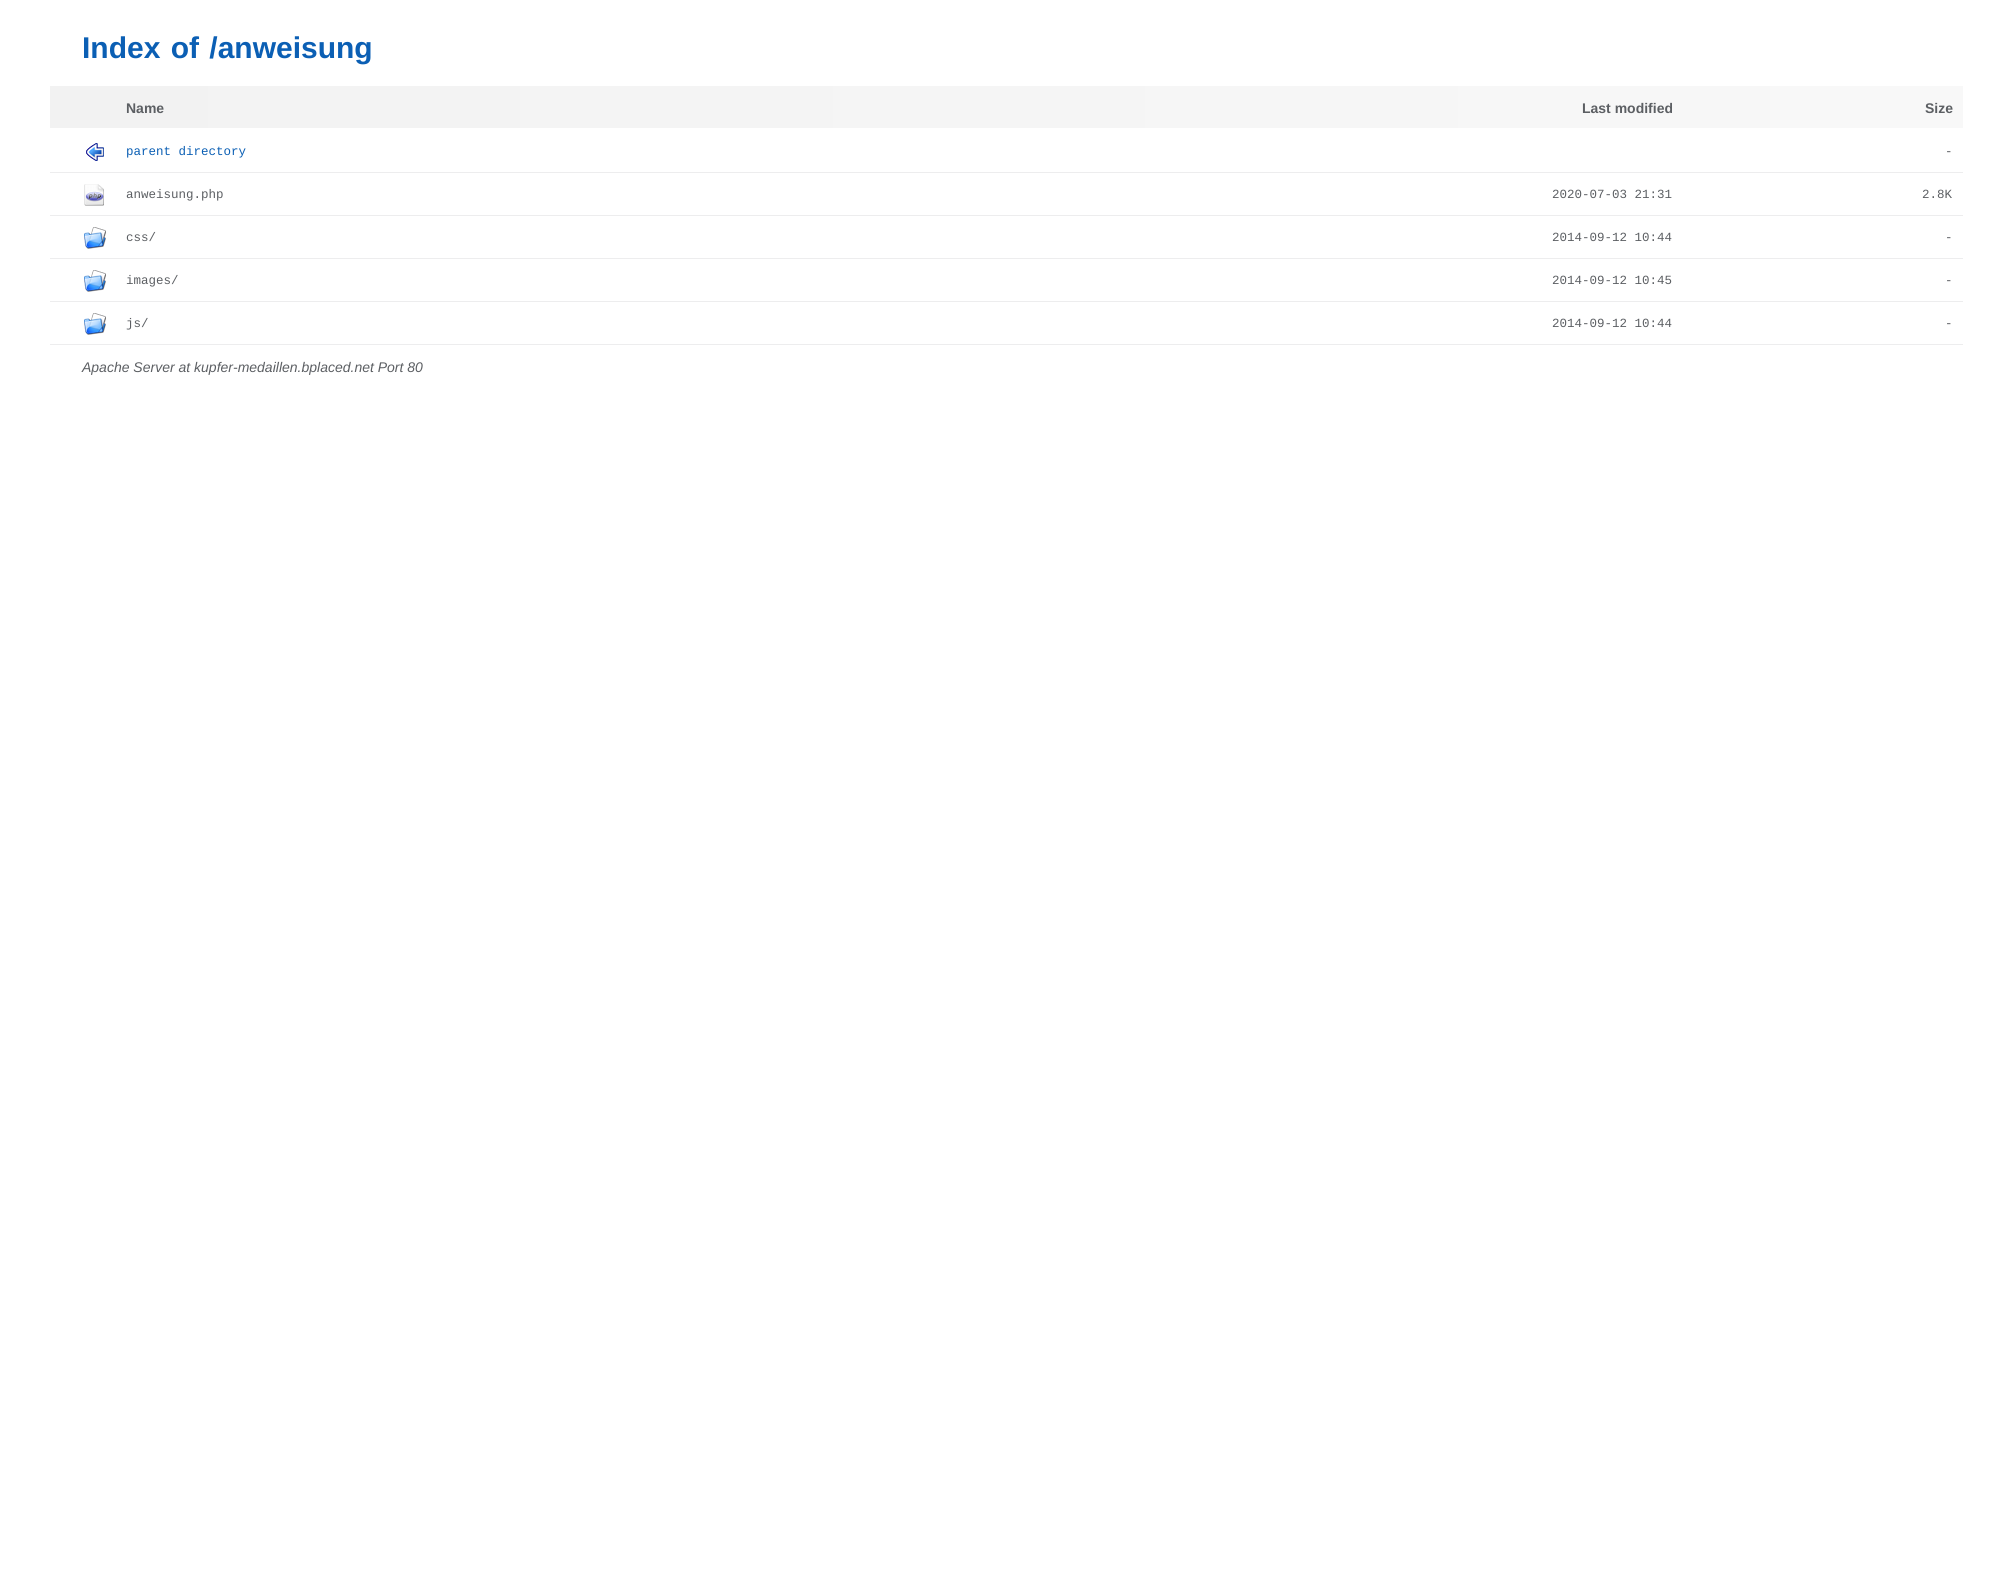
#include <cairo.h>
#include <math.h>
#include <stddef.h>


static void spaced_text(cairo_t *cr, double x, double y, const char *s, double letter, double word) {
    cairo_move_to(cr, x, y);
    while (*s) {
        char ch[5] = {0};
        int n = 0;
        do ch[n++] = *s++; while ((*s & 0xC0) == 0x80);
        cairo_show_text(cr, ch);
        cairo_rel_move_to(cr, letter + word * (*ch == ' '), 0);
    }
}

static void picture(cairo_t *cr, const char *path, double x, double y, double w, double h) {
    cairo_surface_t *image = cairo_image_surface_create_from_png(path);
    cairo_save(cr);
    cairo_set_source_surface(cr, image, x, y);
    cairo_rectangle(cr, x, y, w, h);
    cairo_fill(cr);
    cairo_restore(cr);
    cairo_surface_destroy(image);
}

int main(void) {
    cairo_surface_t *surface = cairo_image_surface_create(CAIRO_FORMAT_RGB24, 2013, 1590);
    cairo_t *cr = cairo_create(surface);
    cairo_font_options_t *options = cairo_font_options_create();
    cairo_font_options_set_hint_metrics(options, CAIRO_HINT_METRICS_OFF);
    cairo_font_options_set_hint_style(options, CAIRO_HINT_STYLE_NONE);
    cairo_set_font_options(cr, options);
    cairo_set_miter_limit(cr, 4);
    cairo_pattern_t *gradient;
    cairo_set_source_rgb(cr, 1, 1, 1);
    cairo_paint(cr);
    cairo_select_font_face(cr, "Liberation Sans", CAIRO_FONT_SLANT_NORMAL, CAIRO_FONT_WEIGHT_BOLD);
    cairo_set_font_size(cr, 30);
    cairo_set_source_rgb(cr, 0.043, 0.373, 0.706);
    spaced_text(cr, 82, 58, "Index of /anweisung", 0, 2);
    gradient = cairo_pattern_create_linear(50, 86, 1963, 86);
    cairo_pattern_add_color_stop_rgba(gradient, 0, 0.949, 0.949, 0.949, 1);
    cairo_pattern_add_color_stop_rgba(gradient, 1, 0.973, 0.973, 0.973, 1);
    cairo_set_source(cr, gradient);
    cairo_pattern_destroy(gradient);
    cairo_rectangle(cr, 50, 86, 1913, 42);
    cairo_fill(cr);
    cairo_set_font_size(cr, 14);
    cairo_set_source_rgb(cr, 0.361, 0.373, 0.388);
    cairo_move_to(cr, 126, 113);
    cairo_show_text(cr, "Name");
    cairo_move_to(cr, 1582, 113);
    cairo_show_text(cr, "Last modified");
    cairo_move_to(cr, 1925, 113);
    cairo_show_text(cr, "Size");
    picture(cr, "img1.png", 86, 143, 18, 18);
    cairo_select_font_face(cr, "Liberation Mono", CAIRO_FONT_SLANT_NORMAL, CAIRO_FONT_WEIGHT_NORMAL);
    cairo_set_font_size(cr, 12.5);
    cairo_set_source_rgb(cr, 0.043, 0.373, 0.706);
    cairo_move_to(cr, 126, 155);
    cairo_show_text(cr, "parent directory");
    cairo_set_source_rgb(cr, 0.929, 0.929, 0.933);
    cairo_rectangle(cr, 50, 172, 1913, 1);
    cairo_fill(cr);
    cairo_set_source_rgb(cr, 0.361, 0.373, 0.388);
    cairo_move_to(cr, 1945, 155);
    cairo_show_text(cr, "-");
    picture(cr, "img2.png", 84, 184, 20, 22);
    cairo_move_to(cr, 126, 198);
    cairo_show_text(cr, "anweisung.php");
    cairo_move_to(cr, 1552, 198);
    cairo_show_text(cr, "2020-07-03 21:31");
    cairo_set_source_rgb(cr, 0.929, 0.929, 0.933);
    cairo_rectangle(cr, 50, 215, 1913, 1);
    cairo_fill(cr);
    cairo_set_source_rgb(cr, 0.361, 0.373, 0.388);
    cairo_move_to(cr, 1922, 198);
    cairo_show_text(cr, "2.8K");
    picture(cr, "img3.png", 84, 227, 22, 22);
    cairo_move_to(cr, 126, 241);
    cairo_show_text(cr, "css/");
    cairo_move_to(cr, 1552, 241);
    cairo_show_text(cr, "2014-09-12 10:44");
    cairo_set_source_rgb(cr, 0.929, 0.929, 0.933);
    cairo_rectangle(cr, 50, 258, 1913, 1);
    cairo_fill(cr);
    cairo_set_source_rgb(cr, 0.361, 0.373, 0.388);
    cairo_move_to(cr, 1945, 241);
    cairo_show_text(cr, "-");
    picture(cr, "img3.png", 84, 270, 22, 22);
    cairo_move_to(cr, 126, 284);
    cairo_show_text(cr, "images/");
    cairo_move_to(cr, 1552, 284);
    cairo_show_text(cr, "2014-09-12 10:45");
    cairo_set_source_rgb(cr, 0.929, 0.929, 0.933);
    cairo_rectangle(cr, 50, 301, 1913, 1);
    cairo_fill(cr);
    cairo_set_source_rgb(cr, 0.361, 0.373, 0.388);
    cairo_move_to(cr, 1945, 284);
    cairo_show_text(cr, "-");
    picture(cr, "img3.png", 84, 313, 22, 22);
    cairo_move_to(cr, 126, 327);
    cairo_show_text(cr, "js/");
    cairo_move_to(cr, 1552, 327);
    cairo_show_text(cr, "2014-09-12 10:44");
    cairo_set_source_rgb(cr, 0.929, 0.929, 0.933);
    cairo_rectangle(cr, 50, 344, 1913, 1);
    cairo_fill(cr);
    cairo_set_source_rgb(cr, 0.361, 0.373, 0.388);
    cairo_move_to(cr, 1945, 327);
    cairo_show_text(cr, "-");
    cairo_select_font_face(cr, "Liberation Sans", CAIRO_FONT_SLANT_ITALIC, CAIRO_FONT_WEIGHT_NORMAL);
    cairo_set_font_size(cr, 14);
    cairo_move_to(cr, 82, 372);
    cairo_show_text(cr, "Apache Server at kupfer-medaillen.bplaced.net Port 80");
    cairo_surface_write_to_png(surface, "page.png");
    cairo_font_options_destroy(options);
    cairo_destroy(cr);
    cairo_surface_destroy(surface);
    return 0;
}
